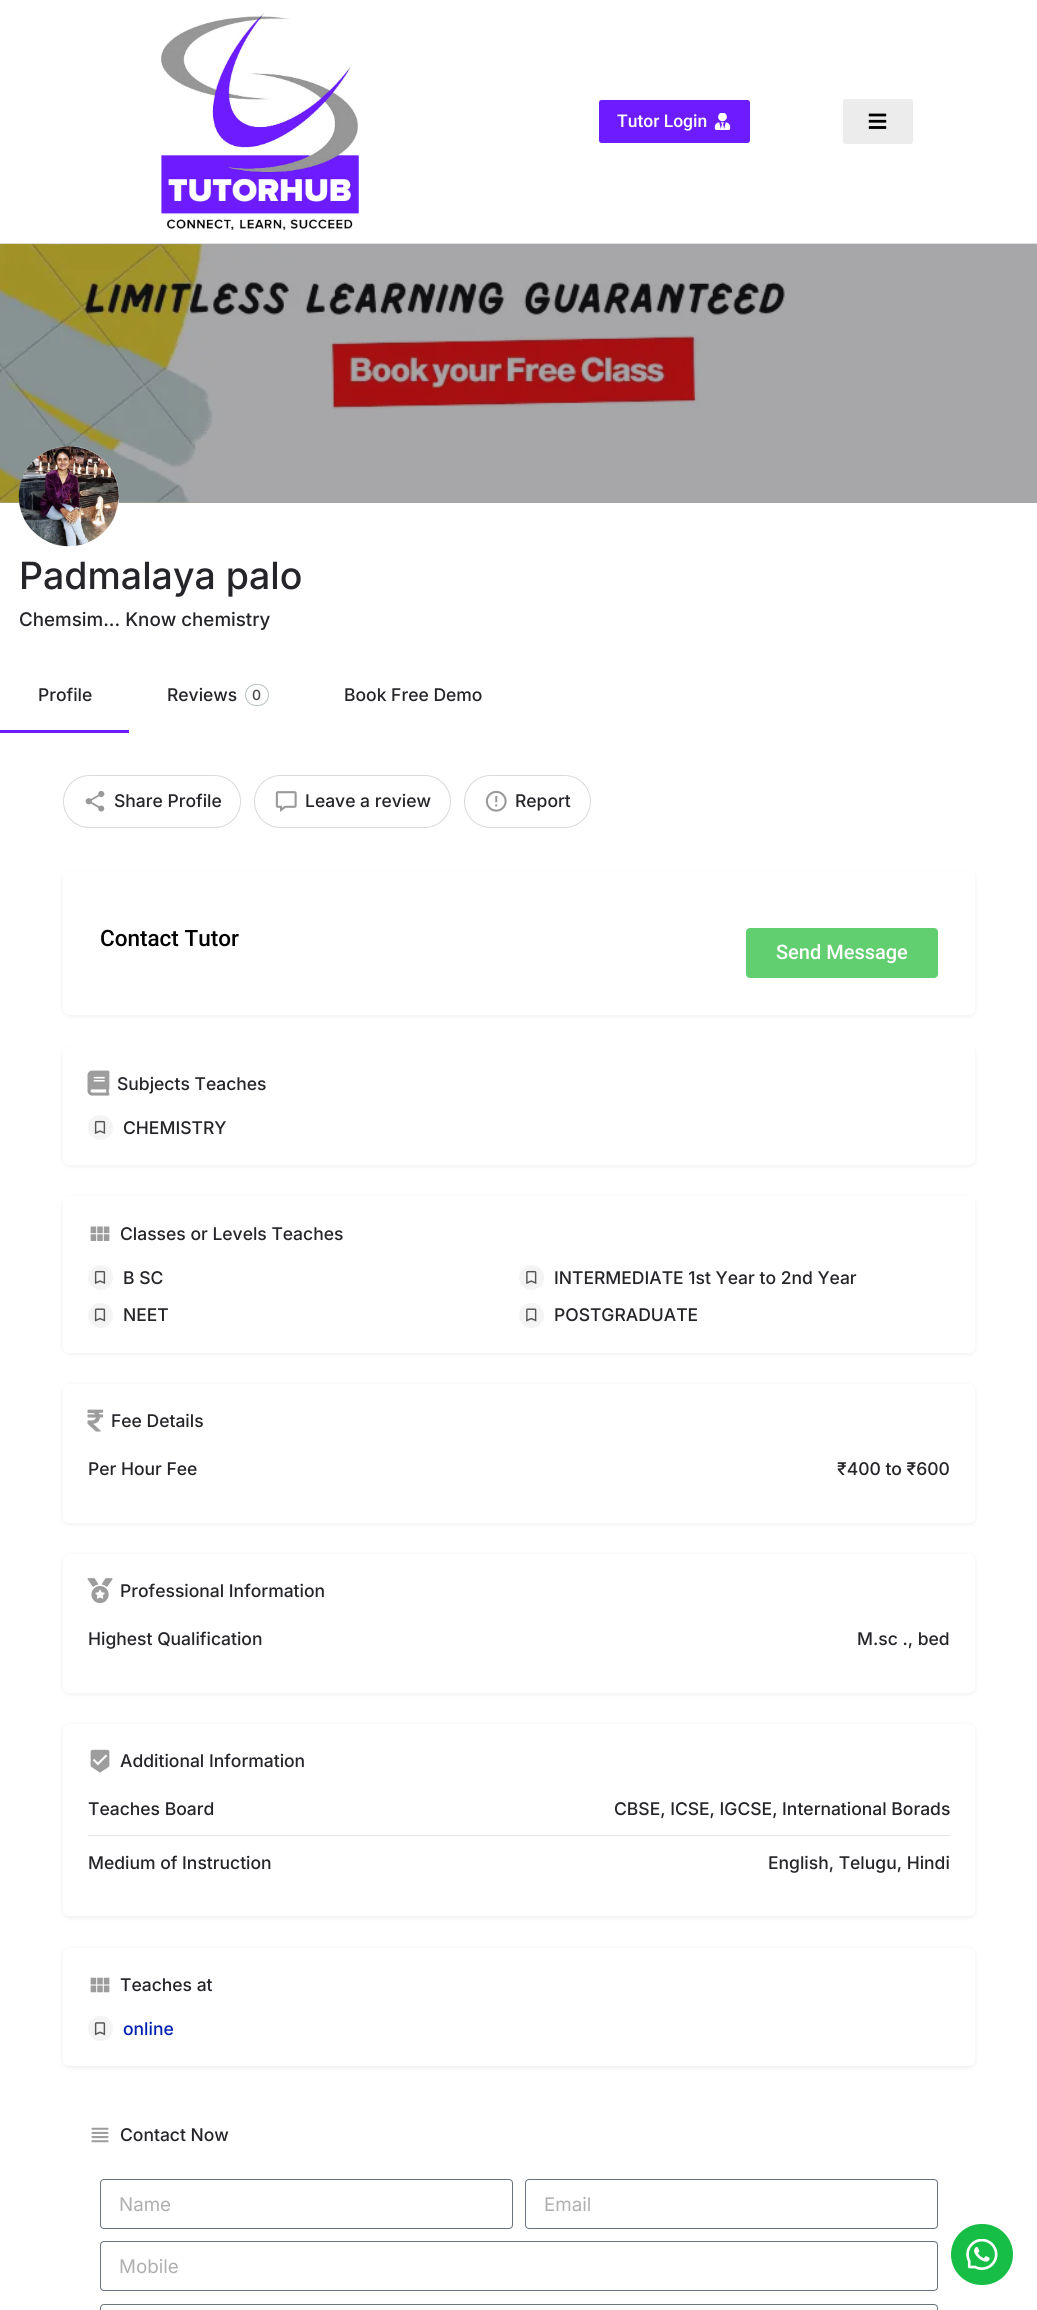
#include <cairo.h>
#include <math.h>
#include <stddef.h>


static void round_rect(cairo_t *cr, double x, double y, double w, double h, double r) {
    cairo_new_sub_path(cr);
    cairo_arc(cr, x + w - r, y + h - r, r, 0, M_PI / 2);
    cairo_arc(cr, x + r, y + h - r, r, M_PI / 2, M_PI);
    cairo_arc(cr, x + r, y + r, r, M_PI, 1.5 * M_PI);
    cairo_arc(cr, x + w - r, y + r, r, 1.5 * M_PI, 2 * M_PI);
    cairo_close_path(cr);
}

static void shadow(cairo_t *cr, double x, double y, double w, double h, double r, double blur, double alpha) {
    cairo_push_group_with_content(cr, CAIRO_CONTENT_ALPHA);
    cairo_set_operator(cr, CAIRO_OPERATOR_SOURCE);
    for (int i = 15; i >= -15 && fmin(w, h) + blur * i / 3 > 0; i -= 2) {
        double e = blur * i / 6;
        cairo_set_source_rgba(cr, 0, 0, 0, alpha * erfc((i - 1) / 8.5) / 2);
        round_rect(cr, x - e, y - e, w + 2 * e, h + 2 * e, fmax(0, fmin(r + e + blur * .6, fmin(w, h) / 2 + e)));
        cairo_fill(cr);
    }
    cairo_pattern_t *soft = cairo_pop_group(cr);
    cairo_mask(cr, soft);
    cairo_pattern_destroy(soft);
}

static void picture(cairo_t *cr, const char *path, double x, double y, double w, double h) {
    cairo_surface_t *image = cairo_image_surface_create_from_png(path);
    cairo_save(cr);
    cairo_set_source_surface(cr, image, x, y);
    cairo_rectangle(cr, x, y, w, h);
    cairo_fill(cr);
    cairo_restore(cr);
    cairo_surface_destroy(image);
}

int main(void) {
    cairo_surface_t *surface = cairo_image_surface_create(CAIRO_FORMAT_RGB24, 1037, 2310);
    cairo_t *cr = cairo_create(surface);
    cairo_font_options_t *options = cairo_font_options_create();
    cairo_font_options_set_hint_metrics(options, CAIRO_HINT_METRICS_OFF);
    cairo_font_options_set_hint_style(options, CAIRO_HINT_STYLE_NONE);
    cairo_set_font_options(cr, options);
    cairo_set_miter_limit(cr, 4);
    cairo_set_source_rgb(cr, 1, 1, 1);
    cairo_paint(cr);
    cairo_set_source_rgb(cr, 0.875, 0.875, 0.875);
    cairo_rectangle(cr, 0, 243, 1037, 1);
    cairo_fill(cr);
    picture(cr, "img1.png", 161, 12, 198, 218);
    cairo_set_source_rgb(cr, 0.424, 0.11, 1);
    round_rect(cr, 599, 100, 151, 43, 2.5);
    cairo_fill(cr);
    cairo_select_font_face(cr, "Roboto Medium", CAIRO_FONT_SLANT_NORMAL, CAIRO_FONT_WEIGHT_NORMAL);
    cairo_set_font_size(cr, 17.5);
    cairo_set_source_rgb(cr, 1, 1, 1);
    cairo_move_to(cr, 617, 127);
    cairo_show_text(cr, "Tutor Login");
    picture(cr, "img2.png", 714, 113, 17, 17);
    cairo_set_source_rgb(cr, 0.922, 0.922, 0.922);
    round_rect(cr, 843, 99, 70, 45, 2.5);
    cairo_fill(cr);
    picture(cr, "img3.png", 868, 113, 19, 16);
    picture(cr, "img4.png", 0, 243, 1036, 260);
    cairo_set_source_rgba(cr, 0.141, 0.141, 0.161, 0.4);
    cairo_rectangle(cr, 0, 244, 1037, 259);
    cairo_fill(cr);
    cairo_set_source_rgb(cr, 0.867, 0.898, 0.902);
    cairo_arc(cr, 69, 496, 50, 0, 2 * M_PI);
    cairo_fill(cr);
    picture(cr, "img5.png", 18, 446, 101, 101);
    cairo_select_font_face(cr, "Inter Medium", CAIRO_FONT_SLANT_NORMAL, CAIRO_FONT_WEIGHT_NORMAL);
    cairo_set_font_size(cr, 37.5);
    cairo_set_source_rgb(cr, 0.141, 0.141, 0.161);
    cairo_move_to(cr, 19, 589);
    cairo_show_text(cr, "Padmalaya palo");
    cairo_set_font_size(cr, 18.75);
    cairo_move_to(cr, 19, 626);
    cairo_show_text(cr, "Chemsim... Know chemistry");
    cairo_set_font_size(cr, 17.5);
    cairo_move_to(cr, 38, 701);
    cairo_show_text(cr, "Profile");
    cairo_set_source_rgb(cr, 0.424, 0.11, 1);
    cairo_rectangle(cr, 0, 730, 129, 3);
    cairo_fill(cr);
    cairo_set_source_rgb(cr, 0.141, 0.141, 0.161);
    cairo_move_to(cr, 167, 701);
    cairo_show_text(cr, "Reviews");
    round_rect(cr, 245.5, 684.5, 23, 21, 10.5);
    cairo_set_source_rgb(cr, 0.729, 0.757, 0.757);
    cairo_set_line_width(cr, 1);
    cairo_stroke(cr);
    cairo_set_font_size(cr, 14);
    cairo_set_source_rgb(cr, 0.282, 0.282, 0.282);
    cairo_move_to(cr, 252, 700);
    cairo_show_text(cr, "0");
    cairo_set_font_size(cr, 17.5);
    cairo_set_source_rgb(cr, 0.141, 0.141, 0.161);
    cairo_move_to(cr, 344, 701);
    cairo_show_text(cr, "Book Free Demo");
    round_rect(cr, 63.5, 775.5, 177, 52, 26);
    cairo_set_source_rgb(cr, 0.851, 0.851, 0.851);
    cairo_stroke(cr);
    picture(cr, "img6.png", 85, 790, 20, 22);
    cairo_set_source_rgb(cr, 0.141, 0.141, 0.161);
    cairo_move_to(cr, 114, 807);
    cairo_show_text(cr, "Share Profile");
    round_rect(cr, 254.5, 775.5, 196, 52, 26);
    cairo_set_source_rgb(cr, 0.851, 0.851, 0.851);
    cairo_stroke(cr);
    picture(cr, "img7.png", 275, 791, 22, 21);
    cairo_set_source_rgb(cr, 0.141, 0.141, 0.161);
    cairo_move_to(cr, 305, 807);
    cairo_show_text(cr, "Leave a review");
    round_rect(cr, 464.5, 775.5, 126, 52, 26);
    cairo_set_source_rgb(cr, 0.851, 0.851, 0.851);
    cairo_stroke(cr);
    picture(cr, "img8.png", 485, 790, 22, 22);
    cairo_set_source_rgb(cr, 0.141, 0.141, 0.161);
    cairo_move_to(cr, 515, 807);
    cairo_show_text(cr, "Report");
    cairo_set_source_rgb(cr, 0, 0, 0);
    shadow(cr, 63, 873, 912, 143, 6, 2.5, 0.07);
    cairo_set_source_rgb(cr, 1, 1, 1);
    round_rect(cr, 63, 871, 912, 144, 6);
    cairo_fill(cr);
    cairo_select_font_face(cr, "Roboto Medium", CAIRO_FONT_SLANT_NORMAL, CAIRO_FONT_WEIGHT_NORMAL);
    cairo_set_font_size(cr, 22.5);
    cairo_set_source_rgb(cr, 0, 0, 0);
    cairo_move_to(cr, 100, 946);
    cairo_show_text(cr, "Contact Tutor");
    cairo_set_source_rgb(cr, 0.38, 0.808, 0.439);
    round_rect(cr, 746, 928, 192, 50, 4);
    cairo_fill(cr);
    cairo_set_font_size(cr, 20);
    cairo_set_source_rgb(cr, 1, 1, 1);
    cairo_move_to(cr, 776, 959);
    cairo_show_text(cr, "Send Message");
    cairo_set_source_rgb(cr, 0, 0, 0);
    shadow(cr, 63, 1048, 912, 118, 6, 2.5, 0.07);
    cairo_set_source_rgb(cr, 1, 1, 1);
    round_rect(cr, 63, 1046, 912, 119, 6);
    cairo_fill(cr);
    picture(cr, "img9.png", 87, 1070, 23, 26);
    cairo_select_font_face(cr, "Inter Medium", CAIRO_FONT_SLANT_NORMAL, CAIRO_FONT_WEIGHT_NORMAL);
    cairo_set_font_size(cr, 17.5);
    cairo_set_source_rgb(cr, 0.141, 0.141, 0.161);
    cairo_move_to(cr, 117, 1090);
    cairo_show_text(cr, "Subjects Teaches");
    cairo_set_source_rgb(cr, 0.957, 0.957, 0.957);
    cairo_new_path(cr);
    cairo_arc(cr, 100.5, 1127.5, 12.5, 0, 2 * M_PI);
    cairo_fill(cr);
    picture(cr, "img10.png", 94, 1120, 12, 14);
    cairo_set_source_rgb(cr, 0.141, 0.141, 0.161);
    cairo_move_to(cr, 123, 1134);
    cairo_show_text(cr, "CHEMISTRY");
    cairo_set_source_rgb(cr, 0, 0, 0);
    shadow(cr, 63, 1198, 912, 156, 6, 2.5, 0.07);
    cairo_set_source_rgb(cr, 1, 1, 1);
    round_rect(cr, 63, 1196, 912, 157, 6);
    cairo_fill(cr);
    picture(cr, "img11.png", 90, 1226, 20, 15);
    cairo_set_source_rgb(cr, 0.141, 0.141, 0.161);
    cairo_move_to(cr, 120, 1240);
    cairo_show_text(cr, "Classes or Levels Teaches");
    cairo_set_source_rgb(cr, 0.957, 0.957, 0.957);
    cairo_new_path(cr);
    cairo_arc(cr, 100.5, 1277.5, 12.5, 0, 2 * M_PI);
    cairo_fill(cr);
    picture(cr, "img10.png", 94, 1270, 12, 14);
    cairo_set_source_rgb(cr, 0.141, 0.141, 0.161);
    cairo_move_to(cr, 123, 1284);
    cairo_show_text(cr, "B SC");
    cairo_set_source_rgb(cr, 0.957, 0.957, 0.957);
    cairo_new_path(cr);
    cairo_arc(cr, 531.5, 1277.5, 12.5, 0, 2 * M_PI);
    cairo_fill(cr);
    picture(cr, "img12.png", 526, 1270, 11, 14);
    cairo_set_source_rgb(cr, 0.141, 0.141, 0.161);
    cairo_move_to(cr, 554, 1284);
    cairo_show_text(cr, "INTERMEDIATE 1st Year to 2nd Year");
    cairo_set_source_rgb(cr, 0.957, 0.957, 0.957);
    cairo_new_path(cr);
    cairo_arc(cr, 100.5, 1315.5, 12.5, 0, 2 * M_PI);
    cairo_fill(cr);
    picture(cr, "img13.png", 94, 1308, 12, 14);
    cairo_set_source_rgb(cr, 0.141, 0.141, 0.161);
    cairo_move_to(cr, 123, 1321);
    cairo_show_text(cr, "NEET");
    cairo_set_source_rgb(cr, 0.957, 0.957, 0.957);
    cairo_new_path(cr);
    cairo_arc(cr, 531.5, 1315.5, 12.5, 0, 2 * M_PI);
    cairo_fill(cr);
    picture(cr, "img14.png", 526, 1308, 11, 14);
    cairo_set_source_rgb(cr, 0.141, 0.141, 0.161);
    cairo_move_to(cr, 554, 1321);
    cairo_show_text(cr, "POSTGRADUATE");
    cairo_set_source_rgb(cr, 0, 0, 0);
    shadow(cr, 63, 1385, 912, 139, 6, 2.5, 0.07);
    cairo_set_source_rgb(cr, 1, 1, 1);
    round_rect(cr, 63, 1384, 912, 139, 6);
    cairo_fill(cr);
    picture(cr, "img15.png", 87, 1409, 17, 23);
    cairo_set_source_rgb(cr, 0.141, 0.141, 0.161);
    cairo_move_to(cr, 111, 1427);
    cairo_show_text(cr, "Fee Details");
    cairo_move_to(cr, 88, 1475);
    cairo_show_text(cr, "Per Hour Fee");
    cairo_move_to(cr, 837, 1475);
    cairo_show_text(cr, "₹400 to ₹600");
    cairo_set_source_rgb(cr, 0, 0, 0);
    shadow(cr, 63, 1555, 912, 139, 6, 2.5, 0.07);
    cairo_set_source_rgb(cr, 1, 1, 1);
    round_rect(cr, 63, 1554, 912, 139, 6);
    cairo_fill(cr);
    picture(cr, "img16.png", 87, 1578, 26, 26);
    cairo_set_source_rgb(cr, 0.141, 0.141, 0.161);
    cairo_move_to(cr, 120, 1597);
    cairo_show_text(cr, "Professional Information");
    cairo_move_to(cr, 88, 1645);
    cairo_show_text(cr, "Highest Qualification");
    cairo_move_to(cr, 857, 1645);
    cairo_show_text(cr, "M.sc ., bed");
    cairo_set_source_rgb(cr, 0, 0, 0);
    shadow(cr, 63, 1725, 912, 193, 6, 2.5, 0.07);
    cairo_set_source_rgb(cr, 1, 1, 1);
    round_rect(cr, 63, 1724, 912, 192, 6);
    cairo_fill(cr);
    picture(cr, "img17.png", 90, 1749, 20, 24);
    cairo_set_source_rgb(cr, 0.141, 0.141, 0.161);
    cairo_move_to(cr, 120, 1767);
    cairo_show_text(cr, "Additional Information");
    cairo_set_source_rgb(cr, 0.902, 0.902, 0.902);
    cairo_rectangle(cr, 88, 1835, 862, 1);
    cairo_fill(cr);
    cairo_set_source_rgb(cr, 0.141, 0.141, 0.161);
    cairo_move_to(cr, 88, 1815);
    cairo_show_text(cr, "Teaches Board");
    cairo_move_to(cr, 614, 1815);
    cairo_show_text(cr, "CBSE, ICSE, IGCSE, International Borads");
    cairo_move_to(cr, 88, 1869);
    cairo_show_text(cr, "Medium of Instruction");
    cairo_move_to(cr, 768, 1869);
    cairo_show_text(cr, "English, Telugu, Hindi");
    cairo_set_source_rgb(cr, 0, 0, 0);
    shadow(cr, 63, 1949, 912, 119, 6, 2.5, 0.07);
    cairo_set_source_rgb(cr, 1, 1, 1);
    round_rect(cr, 63, 1948, 912, 118, 6);
    cairo_fill(cr);
    picture(cr, "img18.png", 90, 1977, 20, 16);
    cairo_set_source_rgb(cr, 0.141, 0.141, 0.161);
    cairo_move_to(cr, 120, 1991);
    cairo_show_text(cr, "Teaches at");
    cairo_set_source_rgb(cr, 0.957, 0.957, 0.957);
    cairo_new_path(cr);
    cairo_arc(cr, 100.5, 2028.5, 12.5, 0, 2 * M_PI);
    cairo_fill(cr);
    picture(cr, "img19.png", 94, 2022, 12, 14);
    cairo_set_source_rgb(cr, 0, 0.125, 0.694);
    cairo_move_to(cr, 123, 2035);
    cairo_show_text(cr, "online");
    picture(cr, "img20.png", 91, 2127, 18, 16);
    cairo_set_source_rgb(cr, 0.141, 0.141, 0.161);
    cairo_move_to(cr, 120, 2141);
    cairo_show_text(cr, "Contact Now");
    round_rect(cr, 100.5, 2179.5, 412, 49, 3.5);
    cairo_set_source_rgb(cr, 0.412, 0.447, 0.49);
    cairo_stroke(cr);
    cairo_select_font_face(cr, "Inter", CAIRO_FONT_SLANT_NORMAL, CAIRO_FONT_WEIGHT_NORMAL);
    cairo_set_font_size(cr, 18.75);
    cairo_set_source_rgb(cr, 0.686, 0.686, 0.686);
    cairo_move_to(cr, 119, 2211);
    cairo_show_text(cr, "Name");
    round_rect(cr, 525.5, 2179.5, 412, 49, 3.5);
    cairo_set_source_rgb(cr, 0.412, 0.447, 0.49);
    cairo_stroke(cr);
    cairo_set_source_rgb(cr, 0.686, 0.686, 0.686);
    cairo_move_to(cr, 544, 2211);
    cairo_show_text(cr, "Email");
    round_rect(cr, 100.5, 2241.5, 837, 49, 3.5);
    cairo_set_source_rgb(cr, 0.412, 0.447, 0.49);
    cairo_stroke(cr);
    cairo_set_source_rgb(cr, 0.686, 0.686, 0.686);
    cairo_move_to(cr, 119, 2273);
    cairo_show_text(cr, "Mobile");
    round_rect(cr, 100.5, 2304.5, 837, 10, 3.5);
    cairo_set_source_rgb(cr, 0.412, 0.447, 0.49);
    cairo_stroke(cr);
    cairo_set_source_rgb(cr, 0.086, 0.745, 0.271);
    round_rect(cr, 951, 2224, 62, 61, 30.5);
    cairo_fill(cr);
    picture(cr, "img21.png", 966, 2239, 32, 31);
    cairo_surface_write_to_png(surface, "page.png");
    cairo_font_options_destroy(options);
    cairo_destroy(cr);
    cairo_surface_destroy(surface);
    return 0;
}
